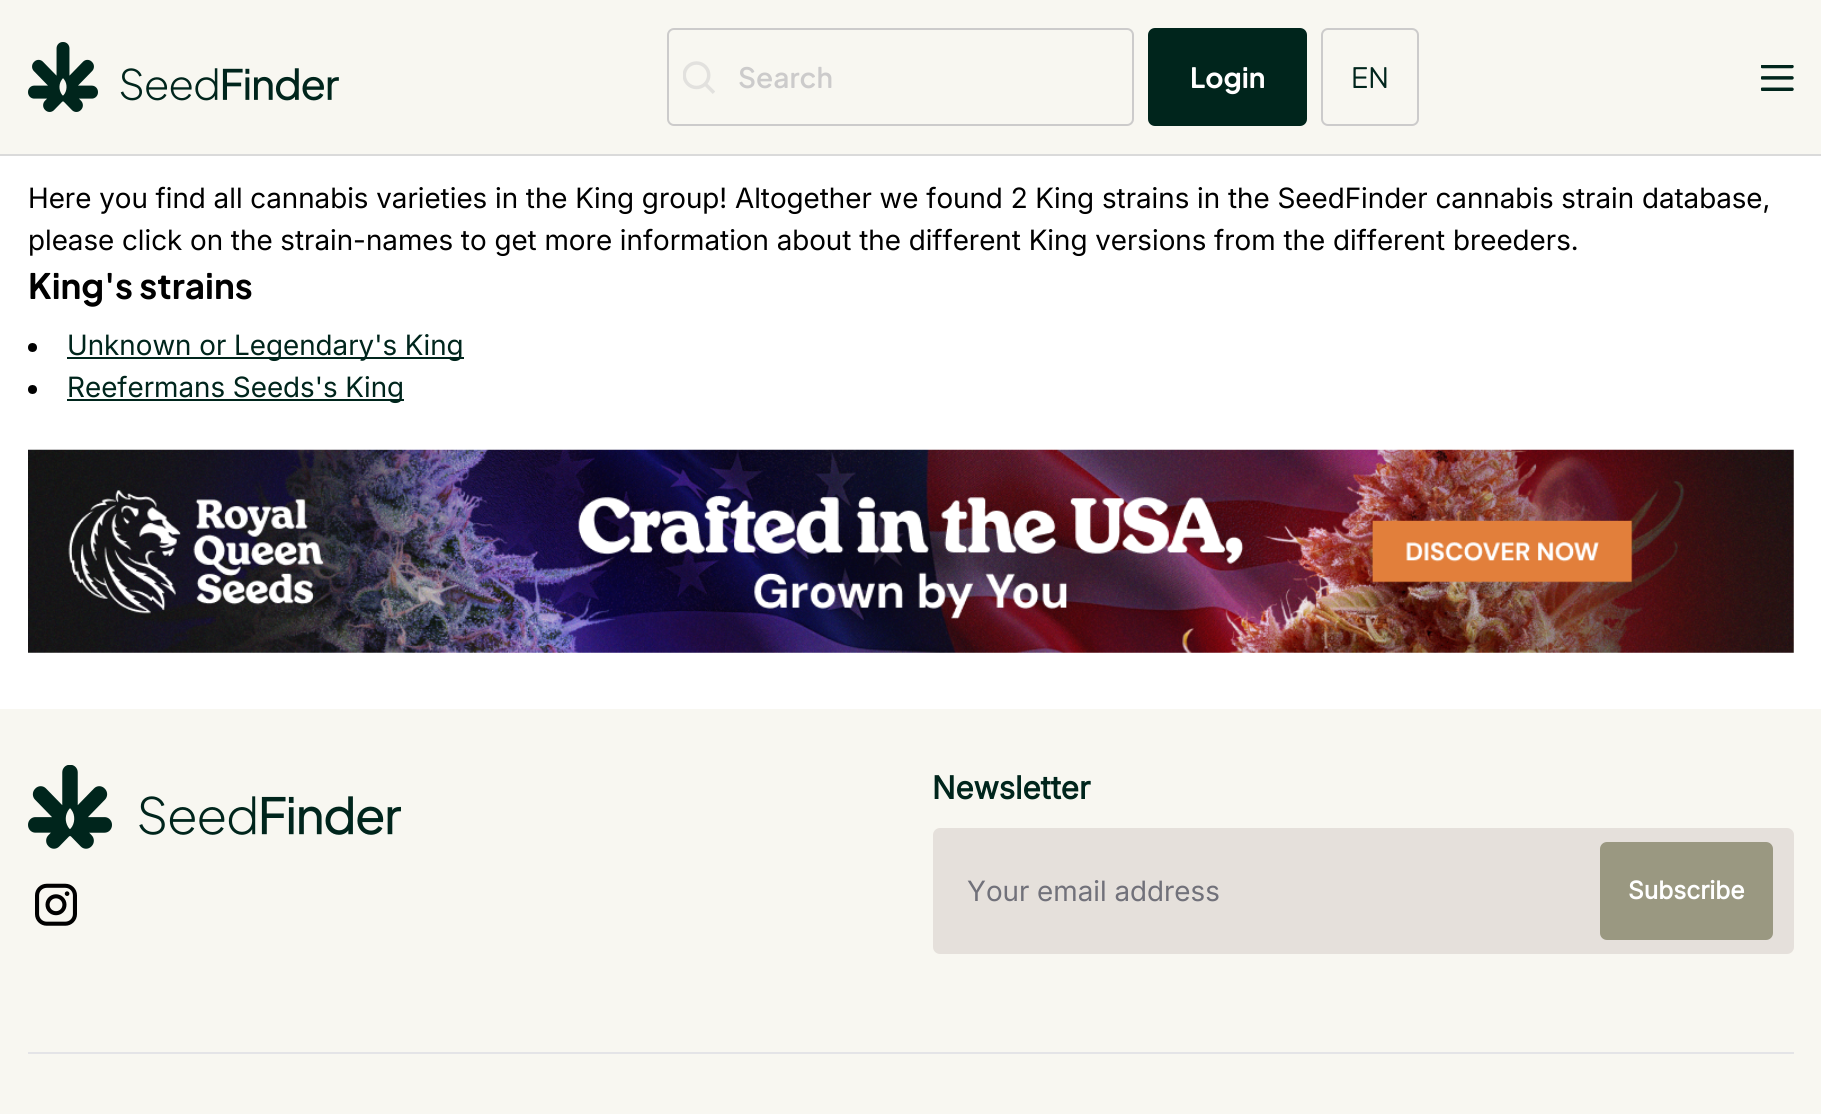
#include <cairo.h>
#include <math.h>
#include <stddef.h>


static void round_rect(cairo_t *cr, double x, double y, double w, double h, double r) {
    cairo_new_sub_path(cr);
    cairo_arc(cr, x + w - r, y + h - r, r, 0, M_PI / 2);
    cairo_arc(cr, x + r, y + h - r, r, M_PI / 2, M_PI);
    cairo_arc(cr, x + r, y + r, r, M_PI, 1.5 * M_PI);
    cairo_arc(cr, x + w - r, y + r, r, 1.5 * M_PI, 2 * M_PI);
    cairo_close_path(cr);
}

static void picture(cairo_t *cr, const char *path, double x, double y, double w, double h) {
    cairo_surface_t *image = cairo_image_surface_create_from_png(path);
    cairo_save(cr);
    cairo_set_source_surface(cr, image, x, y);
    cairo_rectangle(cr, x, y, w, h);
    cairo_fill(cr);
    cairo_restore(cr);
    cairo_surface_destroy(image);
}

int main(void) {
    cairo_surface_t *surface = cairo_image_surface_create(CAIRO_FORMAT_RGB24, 1821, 1114);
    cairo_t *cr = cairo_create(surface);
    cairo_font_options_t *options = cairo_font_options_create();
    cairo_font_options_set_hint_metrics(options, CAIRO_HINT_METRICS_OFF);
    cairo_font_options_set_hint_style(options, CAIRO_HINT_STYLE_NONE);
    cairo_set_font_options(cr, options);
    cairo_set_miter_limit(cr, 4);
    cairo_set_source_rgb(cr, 1, 1, 1);
    cairo_paint(cr);
    cairo_set_source_rgb(cr, 0.969, 0.965, 0.945);
    cairo_rectangle(cr, 0, 0, 1821, 154);
    cairo_fill(cr);
    cairo_set_source_rgb(cr, 0.855, 0.855, 0.855);
    cairo_rectangle(cr, 0, 154, 1821, 2);
    cairo_fill(cr);
    picture(cr, "img1.png", 28, 42, 311, 70);
    round_rect(cr, 668, 29, 465, 96, 6);
    cairo_set_source_rgb(cr, 0.8, 0.796, 0.796);
    cairo_stroke(cr);
    picture(cr, "img2.png", 683, 61, 32, 33);
    cairo_select_font_face(cr, "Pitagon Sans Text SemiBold", CAIRO_FONT_SLANT_NORMAL, CAIRO_FONT_WEIGHT_NORMAL);
    cairo_set_font_size(cr, 28);
    cairo_move_to(cr, 738, 88);
    cairo_show_text(cr, "Search");
    cairo_set_source_rgb(cr, 0, 0.145, 0.11);
    round_rect(cr, 1148, 28, 159, 98, 7);
    cairo_fill(cr);
    cairo_select_font_face(cr, "Pitagon Sans Text", CAIRO_FONT_SLANT_NORMAL, CAIRO_FONT_WEIGHT_BOLD);
    cairo_set_source_rgb(cr, 1, 1, 1);
    cairo_move_to(cr, 1190, 88);
    cairo_show_text(cr, "Login");
    round_rect(cr, 1322, 29, 96, 96, 6);
    cairo_set_source_rgb(cr, 0.8, 0.796, 0.796);
    cairo_stroke(cr);
    cairo_select_font_face(cr, "Pitagon Sans Text", CAIRO_FONT_SLANT_NORMAL, CAIRO_FONT_WEIGHT_NORMAL);
    cairo_set_source_rgb(cr, 0, 0.145, 0.11);
    cairo_move_to(cr, 1351, 88);
    cairo_show_text(cr, "EN");
    picture(cr, "img3.png", 1761, 65, 33, 26);
    cairo_select_font_face(cr, "Inter", CAIRO_FONT_SLANT_NORMAL, CAIRO_FONT_WEIGHT_NORMAL);
    cairo_set_source_rgb(cr, 0, 0, 0);
    cairo_move_to(cr, 28, 208);
    cairo_show_text(cr, "Here you find all cannabis varieties in the King group! Altogether we found 2 King strains in the SeedFinder cannabis strain database,");
    cairo_move_to(cr, 28, 250);
    cairo_show_text(cr, "please click on the strain-names to get more information about the different King versions from the different breeders.");
    cairo_select_font_face(cr, "Pitagon Sans Text", CAIRO_FONT_SLANT_NORMAL, CAIRO_FONT_WEIGHT_BOLD);
    cairo_set_font_size(cr, 35);
    cairo_move_to(cr, 28, 299);
    cairo_show_text(cr, "King's strains");
    cairo_new_path(cr);
    cairo_arc(cr, 32.5, 347.5, 4.5, 0, 2 * M_PI);
    cairo_fill(cr);
    cairo_set_source_rgb(cr, 0, 0.145, 0.11);
    cairo_rectangle(cr, 67, 357, 397, 2);
    cairo_fill(cr);
    cairo_select_font_face(cr, "Inter", CAIRO_FONT_SLANT_NORMAL, CAIRO_FONT_WEIGHT_NORMAL);
    cairo_set_font_size(cr, 28);
    cairo_move_to(cr, 67, 355);
    cairo_show_text(cr, "Unknown or Legendary's King");
    cairo_set_source_rgb(cr, 0, 0, 0);
    cairo_new_path(cr);
    cairo_arc(cr, 32.5, 389.5, 4.5, 0, 2 * M_PI);
    cairo_fill(cr);
    cairo_set_source_rgb(cr, 0, 0.145, 0.11);
    cairo_rectangle(cr, 67, 399, 337, 2);
    cairo_fill(cr);
    cairo_move_to(cr, 67, 397);
    cairo_show_text(cr, "Reefermans Seeds's King");
    picture(cr, "img4.png", 28, 449, 1766, 204);
    cairo_set_source_rgb(cr, 0.969, 0.965, 0.945);
    cairo_rectangle(cr, 0, 709, 1821, 405);
    cairo_fill(cr);
    picture(cr, "img5.png", 28, 765, 373, 84);
    picture(cr, "img6.png", 35, 883, 42, 43);
    cairo_select_font_face(cr, "Inter", CAIRO_FONT_SLANT_NORMAL, CAIRO_FONT_WEIGHT_BOLD);
    cairo_set_font_size(cr, 31.5);
    cairo_set_source_rgb(cr, 0, 0.145, 0.11);
    cairo_move_to(cr, 932, 799);
    cairo_show_text(cr, "Newsletter");
    cairo_set_source_rgb(cr, 0.898, 0.878, 0.859);
    round_rect(cr, 933, 828, 861, 126, 7);
    cairo_fill(cr);
    cairo_select_font_face(cr, "Inter", CAIRO_FONT_SLANT_NORMAL, CAIRO_FONT_WEIGHT_NORMAL);
    cairo_set_font_size(cr, 28);
    cairo_set_source_rgb(cr, 0.443, 0.443, 0.478);
    cairo_move_to(cr, 967, 901);
    cairo_show_text(cr, "Your email address");
    cairo_set_source_rgb(cr, 0.604, 0.596, 0.506);
    round_rect(cr, 1600, 842, 173, 98, 7);
    cairo_fill(cr);
    cairo_select_font_face(cr, "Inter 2", CAIRO_FONT_SLANT_NORMAL, CAIRO_FONT_WEIGHT_BOLD);
    cairo_set_font_size(cr, 24.5);
    cairo_set_source_rgb(cr, 1, 1, 1);
    cairo_move_to(cr, 1628, 899);
    cairo_show_text(cr, "Subscribe");
    cairo_set_source_rgb(cr, 0.894, 0.894, 0.906);
    cairo_rectangle(cr, 28, 1052, 1766, 2);
    cairo_fill(cr);
    cairo_surface_write_to_png(surface, "page.png");
    cairo_font_options_destroy(options);
    cairo_destroy(cr);
    cairo_surface_destroy(surface);
    return 0;
}
